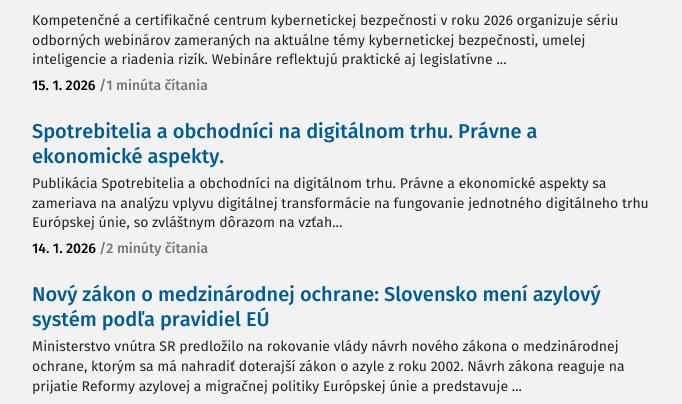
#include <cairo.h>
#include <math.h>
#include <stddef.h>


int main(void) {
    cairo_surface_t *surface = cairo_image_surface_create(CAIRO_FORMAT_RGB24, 682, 404);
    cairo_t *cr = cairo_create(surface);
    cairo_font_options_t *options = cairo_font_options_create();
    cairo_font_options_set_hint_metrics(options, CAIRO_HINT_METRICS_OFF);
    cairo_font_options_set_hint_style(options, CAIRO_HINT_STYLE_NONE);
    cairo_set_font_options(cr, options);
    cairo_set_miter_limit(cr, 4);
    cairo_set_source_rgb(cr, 0.949, 0.949, 0.949);
    cairo_paint(cr);
    cairo_select_font_face(cr, "Fira Sans", CAIRO_FONT_SLANT_NORMAL, CAIRO_FONT_WEIGHT_NORMAL);
    cairo_set_font_size(cr, 14);
    cairo_set_source_rgb(cr, 0.137, 0.137, 0.137);
    cairo_move_to(cr, 32, 25);
    cairo_show_text(cr, "Kompetenčné a certifikačné centrum kybernetickej bezpečnosti v roku 2026 organizuje sériu");
    cairo_move_to(cr, 32, 45);
    cairo_show_text(cr, "odborných webinárov zameraných na aktuálne témy kybernetickej bezpečnosti, umelej");
    cairo_move_to(cr, 32, 64);
    cairo_show_text(cr, "inteligencie a riadenia rizík. Webináre reflektujú praktické aj legislatívne ...");
    cairo_select_font_face(cr, "Fira Sans Medium", CAIRO_FONT_SLANT_NORMAL, CAIRO_FONT_WEIGHT_NORMAL);
    cairo_set_source_rgb(cr, 0, 0, 0);
    cairo_move_to(cr, 32, 90);
    cairo_show_text(cr, "15. 1. 2026");
    cairo_set_source_rgb(cr, 0.459, 0.459, 0.459);
    cairo_move_to(cr, 99, 90);
    cairo_show_text(cr, "/1 minúta čítania");
    cairo_set_font_size(cr, 20);
    cairo_set_source_rgb(cr, 0, 0.357, 0.573);
    cairo_move_to(cr, 32, 138);
    cairo_show_text(cr, "Spotrebitelia a obchodníci na digitálnom trhu. Právne a");
    cairo_move_to(cr, 32, 163);
    cairo_show_text(cr, "ekonomické aspekty.");
    cairo_select_font_face(cr, "Fira Sans", CAIRO_FONT_SLANT_NORMAL, CAIRO_FONT_WEIGHT_NORMAL);
    cairo_set_font_size(cr, 14);
    cairo_set_source_rgb(cr, 0.137, 0.137, 0.137);
    cairo_move_to(cr, 32, 188);
    cairo_show_text(cr, "Publikácia Spotrebitelia a obchodníci na digitálnom trhu. Právne a ekonomické aspekty sa");
    cairo_move_to(cr, 32, 208);
    cairo_show_text(cr, "zameriava na analýzu vplyvu digitálnej transformácie na fungovanie jednotného digitálneho trhu");
    cairo_move_to(cr, 32, 227);
    cairo_show_text(cr, "Európskej únie, so zvláštnym dôrazom na vzťah...");
    cairo_select_font_face(cr, "Fira Sans Medium", CAIRO_FONT_SLANT_NORMAL, CAIRO_FONT_WEIGHT_NORMAL);
    cairo_set_source_rgb(cr, 0, 0, 0);
    cairo_move_to(cr, 32, 253);
    cairo_show_text(cr, "14. 1. 2026");
    cairo_set_source_rgb(cr, 0.459, 0.459, 0.459);
    cairo_move_to(cr, 99, 253);
    cairo_show_text(cr, "/2 minúty čítania");
    cairo_set_font_size(cr, 20);
    cairo_set_source_rgb(cr, 0, 0.357, 0.573);
    cairo_move_to(cr, 32, 301);
    cairo_show_text(cr, "Nový zákon o medzinárodnej ochrane: Slovensko mení azylový");
    cairo_move_to(cr, 32, 326);
    cairo_show_text(cr, "systém podľa pravidiel EÚ");
    cairo_select_font_face(cr, "Fira Sans", CAIRO_FONT_SLANT_NORMAL, CAIRO_FONT_WEIGHT_NORMAL);
    cairo_set_font_size(cr, 14);
    cairo_set_source_rgb(cr, 0.137, 0.137, 0.137);
    cairo_move_to(cr, 32, 351);
    cairo_show_text(cr, "Ministerstvo vnútra SR predložilo na rokovanie vlády návrh nového zákona o medzinárodnej");
    cairo_move_to(cr, 32, 371);
    cairo_show_text(cr, "ochrane, ktorým sa má nahradiť doterajší zákon o azyle z roku 2002. Návrh zákona reaguje na");
    cairo_move_to(cr, 32, 391);
    cairo_show_text(cr, "prijatie Reformy azylovej a migračnej politiky Európskej únie a predstavuje ...");
    cairo_surface_write_to_png(surface, "page.png");
    cairo_font_options_destroy(options);
    cairo_destroy(cr);
    cairo_surface_destroy(surface);
    return 0;
}
